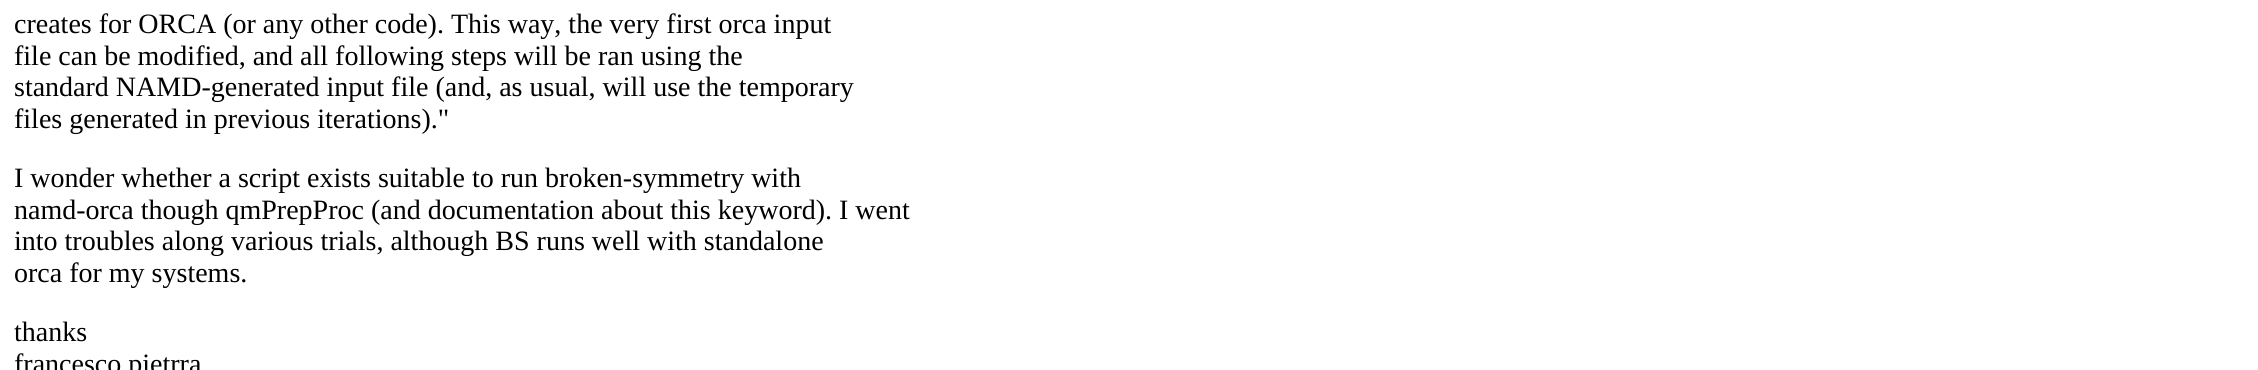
#include <cairo.h>
#include <math.h>
#include <stddef.h>


int main(void) {
    cairo_surface_t *surface = cairo_image_surface_create(CAIRO_FORMAT_RGB24, 2258, 370);
    cairo_t *cr = cairo_create(surface);
    cairo_font_options_t *options = cairo_font_options_create();
    cairo_font_options_set_hint_metrics(options, CAIRO_HINT_METRICS_OFF);
    cairo_font_options_set_hint_style(options, CAIRO_HINT_STYLE_NONE);
    cairo_set_font_options(cr, options);
    cairo_set_miter_limit(cr, 4);
    cairo_set_source_rgb(cr, 1, 1, 1);
    cairo_paint(cr);
    cairo_select_font_face(cr, "Liberation Serif", CAIRO_FONT_SLANT_NORMAL, CAIRO_FONT_WEIGHT_NORMAL);
    cairo_set_font_size(cr, 28);
    cairo_set_source_rgb(cr, 0, 0, 0);
    cairo_move_to(cr, 14, 33);
    cairo_show_text(cr, "creates for ORCA (or any other code). This way, the very first orca input");
    cairo_move_to(cr, 14, 65);
    cairo_show_text(cr, "file can be modified, and all following steps will be ran using the");
    cairo_move_to(cr, 14, 96);
    cairo_show_text(cr, "standard NAMD-generated input file (and, as usual, will use the temporary");
    cairo_move_to(cr, 14, 128);
    cairo_show_text(cr, "files generated in previous iterations).\"");
    cairo_move_to(cr, 14, 187);
    cairo_show_text(cr, "I wonder whether a script exists suitable to run broken-symmetry with");
    cairo_move_to(cr, 14, 219);
    cairo_show_text(cr, "namd-orca though qmPrepProc (and documentation about this keyword). I went");
    cairo_move_to(cr, 14, 250);
    cairo_show_text(cr, "into troubles along various trials, although BS runs well with standalone");
    cairo_move_to(cr, 14, 282);
    cairo_show_text(cr, "orca for my systems.");
    cairo_move_to(cr, 14, 341);
    cairo_show_text(cr, "thanks");
    cairo_move_to(cr, 14, 373);
    cairo_show_text(cr, "francesco pietrra");
    cairo_surface_write_to_png(surface, "page.png");
    cairo_font_options_destroy(options);
    cairo_destroy(cr);
    cairo_surface_destroy(surface);
    return 0;
}
